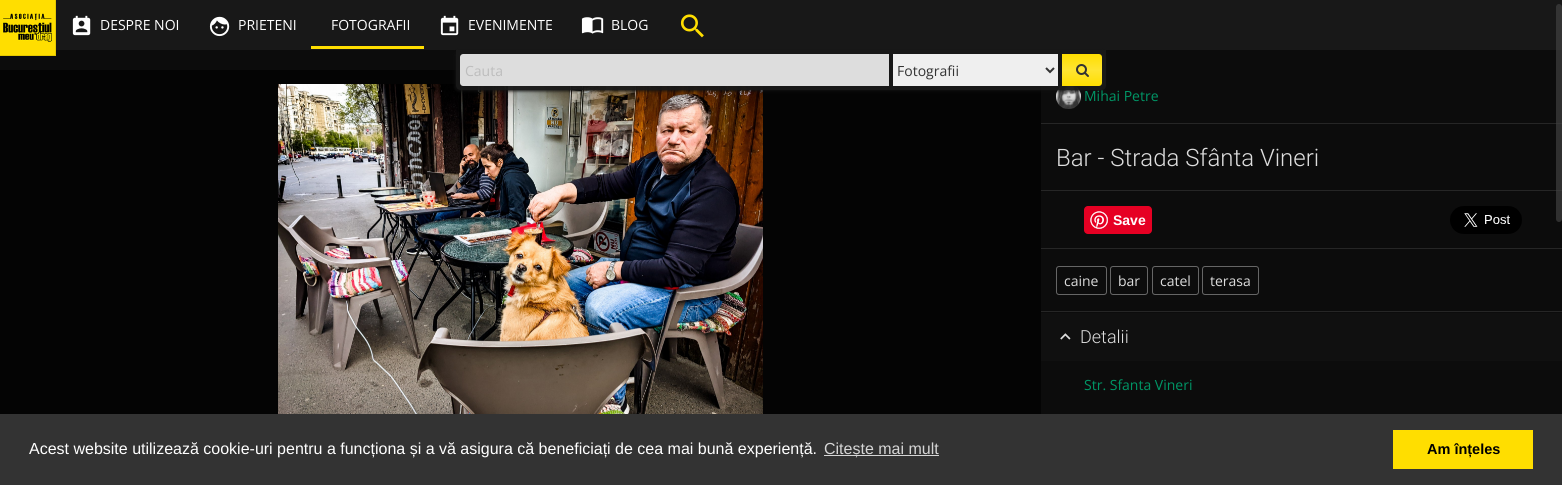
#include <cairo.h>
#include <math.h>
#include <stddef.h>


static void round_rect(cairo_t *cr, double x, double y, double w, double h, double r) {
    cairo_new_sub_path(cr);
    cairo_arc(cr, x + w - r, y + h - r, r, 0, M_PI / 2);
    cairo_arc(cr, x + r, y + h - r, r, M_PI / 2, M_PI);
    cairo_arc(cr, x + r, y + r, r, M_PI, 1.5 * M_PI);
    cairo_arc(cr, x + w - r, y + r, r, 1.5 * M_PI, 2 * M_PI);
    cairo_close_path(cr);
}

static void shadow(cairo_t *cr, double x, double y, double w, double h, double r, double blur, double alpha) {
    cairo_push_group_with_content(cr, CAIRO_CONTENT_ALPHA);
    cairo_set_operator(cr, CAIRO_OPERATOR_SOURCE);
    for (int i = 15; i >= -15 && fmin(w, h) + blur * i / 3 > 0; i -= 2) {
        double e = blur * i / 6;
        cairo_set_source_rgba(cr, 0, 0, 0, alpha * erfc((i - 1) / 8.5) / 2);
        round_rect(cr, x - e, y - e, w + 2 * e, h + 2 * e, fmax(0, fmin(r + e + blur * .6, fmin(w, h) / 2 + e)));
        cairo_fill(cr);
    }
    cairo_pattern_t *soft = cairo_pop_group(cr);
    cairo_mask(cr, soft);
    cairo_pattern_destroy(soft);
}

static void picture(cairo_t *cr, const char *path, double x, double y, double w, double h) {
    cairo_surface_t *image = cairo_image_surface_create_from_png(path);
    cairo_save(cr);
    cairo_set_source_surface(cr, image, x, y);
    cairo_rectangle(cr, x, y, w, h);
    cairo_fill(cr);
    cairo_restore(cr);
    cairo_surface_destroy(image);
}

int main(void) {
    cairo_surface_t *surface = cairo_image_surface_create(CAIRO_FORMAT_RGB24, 1562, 485);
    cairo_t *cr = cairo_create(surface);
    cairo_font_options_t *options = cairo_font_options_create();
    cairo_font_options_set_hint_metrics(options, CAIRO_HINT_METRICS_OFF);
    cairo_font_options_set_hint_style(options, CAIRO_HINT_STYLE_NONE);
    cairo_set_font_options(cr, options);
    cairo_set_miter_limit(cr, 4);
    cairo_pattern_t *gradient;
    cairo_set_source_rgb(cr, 0.047, 0.047, 0.047);
    cairo_paint(cr);
    cairo_set_source_rgb(cr, 0.094, 0.094, 0.094);
    cairo_rectangle(cr, 56, 0, 1506, 50);
    cairo_fill(cr);
    cairo_set_source_rgb(cr, 1, 0.871, 0);
    cairo_rectangle(cr, 0, 0, 55, 55);
    cairo_fill(cr);
    picture(cr, "img1.png", 2, 13, 51, 29);
    cairo_set_source_rgb(cr, 0.902, 0.784, 0);
    cairo_rectangle(cr, 55, 0, 1, 56);
    cairo_fill(cr);
    cairo_rectangle(cr, 0, 55, 56, 1);
    cairo_fill(cr);
    picture(cr, "img2.png", 72, 15, 19, 21);
    cairo_select_font_face(cr, "Open Sans", CAIRO_FONT_SLANT_NORMAL, CAIRO_FONT_WEIGHT_NORMAL);
    cairo_set_font_size(cr, 14);
    cairo_set_source_rgb(cr, 1, 1, 1);
    cairo_move_to(cr, 100, 30);
    cairo_show_text(cr, "DESPRE NOI");
    picture(cr, "img3.png", 209, 16, 21, 21);
    cairo_move_to(cr, 238, 30);
    cairo_show_text(cr, "PRIETENI");
    cairo_set_source_rgb(cr, 1, 0.871, 0);
    cairo_rectangle(cr, 311, 46, 113, 3);
    cairo_fill(cr);
    cairo_set_source_rgb(cr, 1, 1, 1);
    cairo_move_to(cr, 331, 30);
    cairo_show_text(cr, "FOTOGRAFII");
    picture(cr, "img4.png", 440, 15, 19, 21);
    cairo_move_to(cr, 468, 30);
    cairo_show_text(cr, "EVENIMENTE");
    picture(cr, "img5.png", 581, 17, 23, 17);
    cairo_move_to(cr, 611, 30);
    cairo_show_text(cr, "BLOG");
    picture(cr, "img6.png", 680, 14, 24, 24);
    cairo_set_source_rgb(cr, 0.016, 0.016, 0.016);
    cairo_rectangle(cr, 0, 70, 1041, 344);
    cairo_fill(cr);
    picture(cr, "img8.png", 278, 84, 485, 330);
    picture(cr, "img9.png", 1056, 85, 25, 24);
    cairo_save(cr);
    cairo_set_fill_rule(cr, CAIRO_FILL_RULE_EVEN_ODD);
    cairo_new_path(cr);
    cairo_move_to(cr, 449, 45);
    cairo_line_to(cr, 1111, 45);
    cairo_line_to(cr, 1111, 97);
    cairo_line_to(cr, 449, 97);
    cairo_close_path(cr);
    cairo_move_to(cr, 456, 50);
    cairo_line_to(cr, 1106, 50);
    cairo_line_to(cr, 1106, 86);
    cairo_curve_to(cr, 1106, 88, 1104, 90, 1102, 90);
    cairo_line_to(cr, 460, 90);
    cairo_curve_to(cr, 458, 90, 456, 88, 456, 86);
    cairo_close_path(cr);
    cairo_clip(cr);
    cairo_set_source_rgb(cr, 0.067, 0.067, 0.067);
    shadow(cr, 455, 51, 650, 40, 4, 1.5, 1);
    cairo_restore(cr);
    cairo_set_source_rgba(cr, 0.098, 0.098, 0.098, 0.95);
    cairo_new_path(cr);
    cairo_move_to(cr, 456, 50);
    cairo_line_to(cr, 1106, 50);
    cairo_line_to(cr, 1106, 86);
    cairo_curve_to(cr, 1106, 88, 1104, 90, 1102, 90);
    cairo_line_to(cr, 460, 90);
    cairo_curve_to(cr, 458, 90, 456, 88, 456, 86);
    cairo_close_path(cr);
    cairo_fill(cr);
    cairo_set_source_rgb(cr, 0.867, 0.867, 0.867);
    cairo_new_path(cr);
    cairo_move_to(cr, 463, 54);
    cairo_line_to(cr, 889, 54);
    cairo_line_to(cr, 889, 86);
    cairo_line_to(cr, 463, 86);
    cairo_curve_to(cr, 461.5, 86, 460, 84.5, 460, 83);
    cairo_line_to(cr, 460, 57);
    cairo_curve_to(cr, 460, 55.5, 461.5, 54, 463, 54);
    cairo_close_path(cr);
    cairo_fill(cr);
    cairo_set_source_rgb(cr, 0.741, 0.741, 0.741);
    cairo_move_to(cr, 465, 76);
    cairo_show_text(cr, "Cauta");
    cairo_set_source_rgb(cr, 0.937, 0.937, 0.937);
    cairo_rectangle(cr, 893, 54, 165, 32);
    cairo_fill(cr);
    cairo_new_path(cr);
    cairo_move_to(cr, 1046, 68);
    cairo_line_to(cr, 1050, 72);
    cairo_line_to(cr, 1054, 68);
    cairo_set_source_rgb(cr, 0.2, 0.2, 0.2);
    cairo_stroke(cr);
    cairo_move_to(cr, 897, 76);
    cairo_show_text(cr, "Fotografii");
    gradient = cairo_pattern_create_linear(1082, 54, 1082, 86);
    cairo_pattern_add_color_stop_rgba(gradient, 0, 1, 0.871, 0, 1);
    cairo_pattern_add_color_stop_rgba(gradient, 0.5, 1, 0.898, 0.2, 1);
    cairo_pattern_add_color_stop_rgba(gradient, 1, 1, 0.871, 0, 1);
    cairo_set_source(cr, gradient);
    cairo_pattern_destroy(gradient);
    cairo_new_path(cr);
    cairo_move_to(cr, 1062, 54);
    cairo_line_to(cr, 1099, 54);
    cairo_curve_to(cr, 1100.5, 54, 1102, 55.5, 1102, 57);
    cairo_line_to(cr, 1102, 83);
    cairo_curve_to(cr, 1102, 84.5, 1100.5, 86, 1099, 86);
    cairo_line_to(cr, 1062, 86);
    cairo_close_path(cr);
    cairo_fill(cr);
    picture(cr, "img7.png", 1076, 64, 13, 13);
    cairo_set_source_rgb(cr, 0.149, 0.149, 0.149);
    cairo_rectangle(cr, 1041, 123, 521, 1);
    cairo_fill(cr);
    cairo_rectangle(cr, 1041, 190, 521, 1);
    cairo_fill(cr);
    cairo_set_source_rgba(cr, 0.259, 0.259, 0.259, 0.67);
    round_rect(cr, 1556, 4, 6, 218, 3);
    cairo_fill(cr);
    cairo_set_source_rgb(cr, 0, 0.588, 0.4);
    cairo_move_to(cr, 1084, 101);
    cairo_show_text(cr, "Mihai Petre");
    cairo_select_font_face(cr, "Roboto Light", CAIRO_FONT_SLANT_NORMAL, CAIRO_FONT_WEIGHT_NORMAL);
    cairo_set_font_size(cr, 24);
    cairo_set_source_rgb(cr, 0.867, 0.867, 0.867);
    cairo_move_to(cr, 1056, 166);
    cairo_show_text(cr, "Bar - Strada Sfânta Vineri");
    cairo_set_source_rgb(cr, 0.902, 0, 0.137);
    round_rect(cr, 1084, 206, 68, 28, 4);
    cairo_fill(cr);
    picture(cr, "img10.png", 1090, 211, 18, 18);
    cairo_select_font_face(cr, "Liberation Sans", CAIRO_FONT_SLANT_NORMAL, CAIRO_FONT_WEIGHT_BOLD);
    cairo_set_font_size(cr, 14);
    cairo_set_source_rgb(cr, 1, 1, 1);
    cairo_move_to(cr, 1113, 225);
    cairo_show_text(cr, "Save");
    picture(cr, "img11.png", 1450, 206, 72, 28);
    cairo_set_source_rgb(cr, 0.149, 0.149, 0.149);
    cairo_rectangle(cr, 1041, 248, 521, 1);
    cairo_fill(cr);
    round_rect(cr, 1056.5, 266.5, 50, 28, 2.5);
    cairo_set_source_rgb(cr, 0.4, 0.4, 0.4);
    cairo_set_line_width(cr, 1);
    cairo_stroke(cr);
    cairo_select_font_face(cr, "Open Sans", CAIRO_FONT_SLANT_NORMAL, CAIRO_FONT_WEIGHT_NORMAL);
    cairo_set_source_rgb(cr, 0.867, 0.867, 0.867);
    cairo_move_to(cr, 1064, 286);
    cairo_show_text(cr, "caine");
    round_rect(cr, 1110.5, 266.5, 37, 28, 2.5);
    cairo_set_source_rgb(cr, 0.4, 0.4, 0.4);
    cairo_stroke(cr);
    cairo_set_source_rgb(cr, 0.867, 0.867, 0.867);
    cairo_move_to(cr, 1118, 286);
    cairo_show_text(cr, "bar");
    round_rect(cr, 1152.5, 266.5, 46, 28, 2.5);
    cairo_set_source_rgb(cr, 0.4, 0.4, 0.4);
    cairo_stroke(cr);
    cairo_set_source_rgb(cr, 0.867, 0.867, 0.867);
    cairo_move_to(cr, 1160, 286);
    cairo_show_text(cr, "catel");
    round_rect(cr, 1202.5, 266.5, 56, 28, 2.5);
    cairo_set_source_rgb(cr, 0.4, 0.4, 0.4);
    cairo_stroke(cr);
    cairo_set_source_rgb(cr, 0.867, 0.867, 0.867);
    cairo_move_to(cr, 1210, 286);
    cairo_show_text(cr, "terasa");
    cairo_set_source_rgb(cr, 0.149, 0.149, 0.149);
    cairo_rectangle(cr, 1041, 311, 521, 1);
    cairo_fill(cr);
    cairo_set_source_rgb(cr, 0.063, 0.063, 0.063);
    cairo_rectangle(cr, 1041, 313, 521, 48);
    cairo_fill(cr);
    picture(cr, "img12.png", 1060, 333, 11, 7);
    cairo_select_font_face(cr, "Roboto Light", CAIRO_FONT_SLANT_NORMAL, CAIRO_FONT_WEIGHT_NORMAL);
    cairo_set_font_size(cr, 18);
    cairo_set_source_rgb(cr, 0.867, 0.867, 0.867);
    cairo_move_to(cr, 1080, 343);
    cairo_show_text(cr, "Detalii");
    cairo_select_font_face(cr, "Open Sans", CAIRO_FONT_SLANT_NORMAL, CAIRO_FONT_WEIGHT_NORMAL);
    cairo_set_font_size(cr, 14);
    cairo_set_source_rgb(cr, 0, 0.588, 0.4);
    cairo_move_to(cr, 1084, 390);
    cairo_show_text(cr, "Str. Sfanta Vineri");
    cairo_set_source_rgb(cr, 0.2, 0.2, 0.2);
    cairo_rectangle(cr, 0, 414, 1562, 71);
    cairo_fill(cr);
    cairo_select_font_face(cr, "Liberation Sans", CAIRO_FONT_SLANT_NORMAL, CAIRO_FONT_WEIGHT_NORMAL);
    cairo_set_font_size(cr, 16);
    cairo_set_source_rgb(cr, 1, 1, 1);
    cairo_move_to(cr, 29, 454);
    cairo_show_text(cr, "Acest website utilizează cookie-uri pentru a funcționa și a vă asigura că beneficiați de cea mai bună experiență.");
    cairo_set_source_rgb(cr, 0.839, 0.839, 0.839);
    cairo_rectangle(cr, 824, 455, 115, 1);
    cairo_fill(cr);
    cairo_move_to(cr, 824, 454);
    cairo_show_text(cr, "Citește mai mult");
    cairo_set_source_rgb(cr, 1, 0.871, 0);
    cairo_rectangle(cr, 1393, 430, 140, 39);
    cairo_fill(cr);
    cairo_select_font_face(cr, "Liberation Sans", CAIRO_FONT_SLANT_NORMAL, CAIRO_FONT_WEIGHT_BOLD);
    cairo_set_font_size(cr, 14.5);
    cairo_set_source_rgb(cr, 0, 0, 0);
    cairo_move_to(cr, 1427, 454);
    cairo_show_text(cr, "Am înțeles");
    cairo_surface_write_to_png(surface, "page.png");
    cairo_font_options_destroy(options);
    cairo_destroy(cr);
    cairo_surface_destroy(surface);
    return 0;
}
